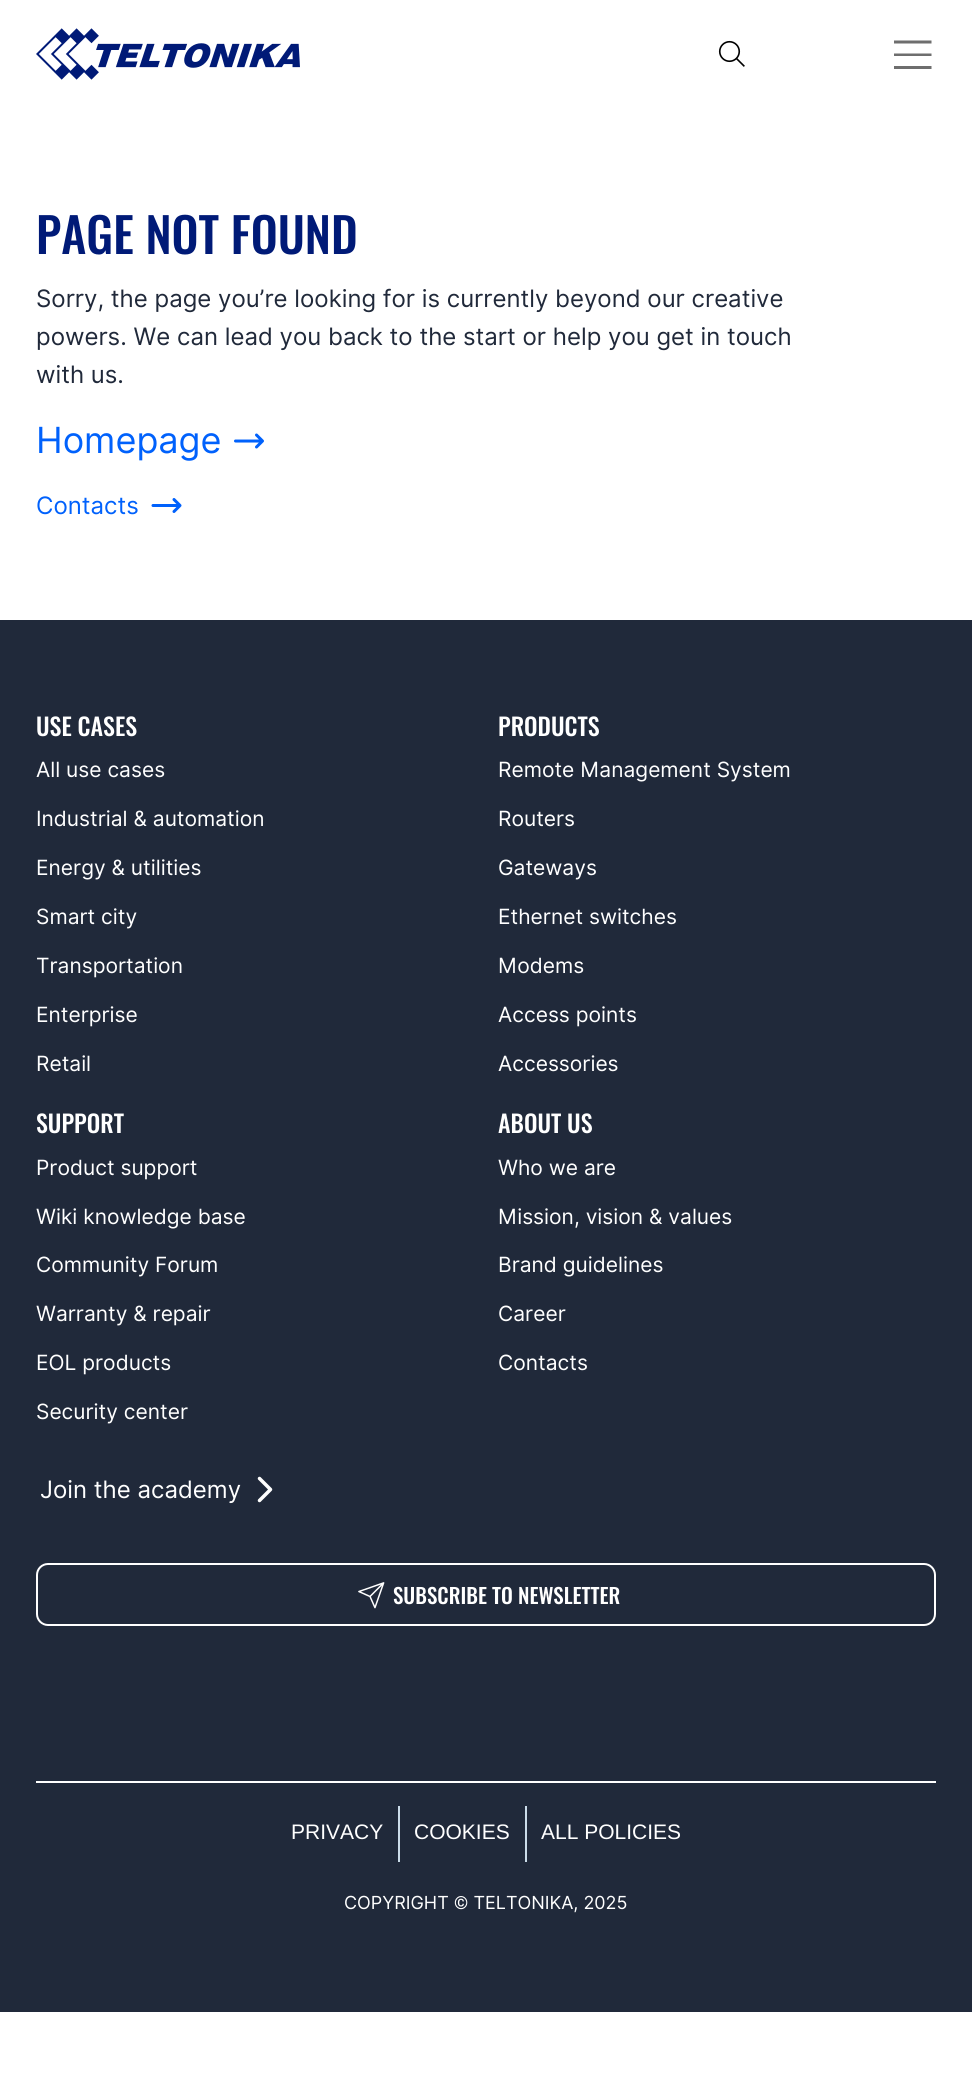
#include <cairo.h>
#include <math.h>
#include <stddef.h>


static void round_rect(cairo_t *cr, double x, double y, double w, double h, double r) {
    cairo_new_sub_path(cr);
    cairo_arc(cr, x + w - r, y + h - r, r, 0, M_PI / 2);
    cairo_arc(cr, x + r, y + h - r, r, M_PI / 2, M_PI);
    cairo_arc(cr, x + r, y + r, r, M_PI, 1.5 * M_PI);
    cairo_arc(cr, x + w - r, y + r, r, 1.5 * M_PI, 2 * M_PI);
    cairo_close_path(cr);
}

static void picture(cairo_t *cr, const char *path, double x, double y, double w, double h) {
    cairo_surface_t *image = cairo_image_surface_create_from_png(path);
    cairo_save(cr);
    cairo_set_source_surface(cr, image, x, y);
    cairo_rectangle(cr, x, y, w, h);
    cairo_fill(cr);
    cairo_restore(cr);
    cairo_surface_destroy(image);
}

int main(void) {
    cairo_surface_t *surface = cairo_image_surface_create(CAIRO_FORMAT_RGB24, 972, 2079);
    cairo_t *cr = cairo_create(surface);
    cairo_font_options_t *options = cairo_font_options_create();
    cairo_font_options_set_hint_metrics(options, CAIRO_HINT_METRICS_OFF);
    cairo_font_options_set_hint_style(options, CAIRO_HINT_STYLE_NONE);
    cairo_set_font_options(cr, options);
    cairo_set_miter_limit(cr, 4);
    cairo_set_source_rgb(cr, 1, 1, 1);
    cairo_paint(cr);
    picture(cr, "img1.png", 36, 28, 264, 52);
    picture(cr, "img2.png", 718, 40, 27, 27);
    cairo_set_source_rgb(cr, 0.431, 0.431, 0.431);
    cairo_set_fill_rule(cr, CAIRO_FILL_RULE_EVEN_ODD);
    cairo_new_path(cr);
    cairo_move_to(cr, 931.5, 43.5);
    cairo_line_to(cr, 894, 43.5);
    cairo_line_to(cr, 894, 40.5);
    cairo_line_to(cr, 931.5, 40.5);
    cairo_close_path(cr);
    cairo_move_to(cr, 931.5, 56);
    cairo_line_to(cr, 894, 56);
    cairo_line_to(cr, 894, 53.5);
    cairo_line_to(cr, 931.5, 53.5);
    cairo_close_path(cr);
    cairo_move_to(cr, 931.5, 69);
    cairo_line_to(cr, 894, 69);
    cairo_line_to(cr, 894, 66);
    cairo_line_to(cr, 931.5, 66);
    cairo_close_path(cr);
    cairo_fill(cr);
    cairo_select_font_face(cr, "Oswald Medium", CAIRO_FONT_SLANT_NORMAL, CAIRO_FONT_WEIGHT_NORMAL);
    cairo_set_font_size(cr, 48);
    cairo_set_source_rgb(cr, 0, 0.102, 0.467);
    cairo_move_to(cr, 36, 254);
    cairo_show_text(cr, "PAGE NOT FOUND");
    cairo_select_font_face(cr, "Inter", CAIRO_FONT_SLANT_NORMAL, CAIRO_FONT_WEIGHT_NORMAL);
    cairo_set_font_size(cr, 24);
    cairo_set_source_rgb(cr, 0.125, 0.161, 0.227);
    cairo_move_to(cr, 36, 307);
    cairo_show_text(cr, "Sorry, the page you’re looking for is currently beyond our creative");
    cairo_move_to(cr, 36, 345);
    cairo_show_text(cr, "powers. We can lead you back to the start or help you get in touch");
    cairo_move_to(cr, 36, 383);
    cairo_show_text(cr, "with us.");
    cairo_set_font_size(cr, 36);
    cairo_set_source_rgb(cr, 0, 0.38, 0.988);
    cairo_move_to(cr, 36, 453);
    cairo_show_text(cr, "Homepage");
    cairo_new_path(cr);
    cairo_move_to(cr, 256.5, 435);
    cairo_line_to(cr, 262.5, 441);
    cairo_move_to(cr, 262.5, 441);
    cairo_line_to(cr, 256.5, 447);
    cairo_move_to(cr, 262.5, 441);
    cairo_line_to(cr, 235.5, 441);
    cairo_set_line_width(cr, 3);
    cairo_set_line_cap(cr, CAIRO_LINE_CAP_ROUND);
    cairo_set_line_join(cr, CAIRO_LINE_JOIN_ROUND);
    cairo_stroke(cr);
    cairo_set_font_size(cr, 24);
    cairo_move_to(cr, 36, 514);
    cairo_show_text(cr, "Contacts");
    cairo_new_path(cr);
    cairo_move_to(cr, 174, 499.5);
    cairo_line_to(cr, 180, 505.5);
    cairo_move_to(cr, 180, 505.5);
    cairo_line_to(cr, 174, 511.5);
    cairo_move_to(cr, 180, 505.5);
    cairo_line_to(cr, 153, 505.5);
    cairo_stroke(cr);
    cairo_set_source_rgb(cr, 0.125, 0.161, 0.227);
    cairo_rectangle(cr, 0, 620, 972, 1392);
    cairo_fill(cr);
    cairo_select_font_face(cr, "Oswald Medium", CAIRO_FONT_SLANT_NORMAL, CAIRO_FONT_WEIGHT_NORMAL);
    cairo_set_source_rgb(cr, 1, 1, 1);
    cairo_move_to(cr, 36, 736);
    cairo_show_text(cr, "USE CASES");
    cairo_select_font_face(cr, "Inter", CAIRO_FONT_SLANT_NORMAL, CAIRO_FONT_WEIGHT_NORMAL);
    cairo_set_font_size(cr, 21);
    cairo_move_to(cr, 36, 777);
    cairo_show_text(cr, "All use cases");
    cairo_move_to(cr, 36, 826);
    cairo_show_text(cr, "Industrial & automation");
    cairo_move_to(cr, 36, 875);
    cairo_show_text(cr, "Energy & utilities");
    cairo_move_to(cr, 36, 924);
    cairo_show_text(cr, "Smart city");
    cairo_move_to(cr, 36, 973);
    cairo_show_text(cr, "Transportation");
    cairo_move_to(cr, 36, 1022);
    cairo_show_text(cr, "Enterprise");
    cairo_move_to(cr, 36, 1071);
    cairo_show_text(cr, "Retail");
    cairo_select_font_face(cr, "Oswald Medium", CAIRO_FONT_SLANT_NORMAL, CAIRO_FONT_WEIGHT_NORMAL);
    cairo_set_font_size(cr, 24);
    cairo_move_to(cr, 498, 736);
    cairo_show_text(cr, "PRODUCTS");
    cairo_select_font_face(cr, "Inter", CAIRO_FONT_SLANT_NORMAL, CAIRO_FONT_WEIGHT_NORMAL);
    cairo_set_font_size(cr, 21);
    cairo_move_to(cr, 498, 777);
    cairo_show_text(cr, "Remote Management System");
    cairo_move_to(cr, 498, 826);
    cairo_show_text(cr, "Routers");
    cairo_move_to(cr, 498, 875);
    cairo_show_text(cr, "Gateways");
    cairo_move_to(cr, 498, 924);
    cairo_show_text(cr, "Ethernet switches");
    cairo_move_to(cr, 498, 973);
    cairo_show_text(cr, "Modems");
    cairo_move_to(cr, 498, 1022);
    cairo_show_text(cr, "Access points");
    cairo_move_to(cr, 498, 1071);
    cairo_show_text(cr, "Accessories");
    cairo_select_font_face(cr, "Oswald Medium", CAIRO_FONT_SLANT_NORMAL, CAIRO_FONT_WEIGHT_NORMAL);
    cairo_set_font_size(cr, 24);
    cairo_move_to(cr, 36, 1133);
    cairo_show_text(cr, "SUPPORT");
    cairo_select_font_face(cr, "Inter", CAIRO_FONT_SLANT_NORMAL, CAIRO_FONT_WEIGHT_NORMAL);
    cairo_set_font_size(cr, 21);
    cairo_move_to(cr, 36, 1175);
    cairo_show_text(cr, "Product support");
    cairo_move_to(cr, 36, 1224);
    cairo_show_text(cr, "Wiki knowledge base");
    cairo_move_to(cr, 36, 1272);
    cairo_show_text(cr, "Community Forum");
    cairo_move_to(cr, 36, 1321);
    cairo_show_text(cr, "Warranty & repair");
    cairo_move_to(cr, 36, 1370);
    cairo_show_text(cr, "EOL products");
    cairo_move_to(cr, 36, 1419);
    cairo_show_text(cr, "Security center");
    cairo_select_font_face(cr, "Oswald Medium", CAIRO_FONT_SLANT_NORMAL, CAIRO_FONT_WEIGHT_NORMAL);
    cairo_set_font_size(cr, 24);
    cairo_move_to(cr, 498, 1133);
    cairo_show_text(cr, "ABOUT US");
    cairo_select_font_face(cr, "Inter", CAIRO_FONT_SLANT_NORMAL, CAIRO_FONT_WEIGHT_NORMAL);
    cairo_set_font_size(cr, 21);
    cairo_move_to(cr, 498, 1175);
    cairo_show_text(cr, "Who we are");
    cairo_move_to(cr, 498, 1224);
    cairo_show_text(cr, "Mission, vision & values");
    cairo_move_to(cr, 498, 1272);
    cairo_show_text(cr, "Brand guidelines");
    cairo_move_to(cr, 498, 1321);
    cairo_show_text(cr, "Career");
    cairo_move_to(cr, 498, 1370);
    cairo_show_text(cr, "Contacts");
    cairo_set_font_size(cr, 24);
    cairo_move_to(cr, 40, 1498);
    cairo_show_text(cr, "Join the academy");
    cairo_new_path(cr);
    cairo_move_to(cr, 259.5, 1478.5);
    cairo_line_to(cr, 270.5, 1489.5);
    cairo_line_to(cr, 259.5, 1500.5);
    cairo_set_line_width(cr, 3.5);
    cairo_stroke(cr);
    round_rect(cr, 37, 1564, 898, 61, 11);
    cairo_set_line_width(cr, 2);
    cairo_set_line_cap(cr, CAIRO_LINE_CAP_BUTT);
    cairo_set_line_join(cr, CAIRO_LINE_JOIN_MITER);
    cairo_stroke(cr);
    picture(cr, "img3.png", 358, 1582, 27, 27);
    cairo_select_font_face(cr, "Oswald Medium", CAIRO_FONT_SLANT_NORMAL, CAIRO_FONT_WEIGHT_NORMAL);
    cairo_set_font_size(cr, 21);
    cairo_move_to(cr, 393, 1604);
    cairo_show_text(cr, "SUBSCRIBE TO NEWSLETTER");
    cairo_rectangle(cr, 36, 1781, 900, 2);
    cairo_fill(cr);
    cairo_select_font_face(cr, "Liberation Sans", CAIRO_FONT_SLANT_NORMAL, CAIRO_FONT_WEIGHT_NORMAL);
    cairo_move_to(cr, 291, 1839);
    cairo_show_text(cr, "PRIVACY");
    cairo_set_source_rgb(cr, 0.796, 0.863, 0.914);
    cairo_rectangle(cr, 398, 1806, 2, 56);
    cairo_fill(cr);
    cairo_set_source_rgb(cr, 1, 1, 1);
    cairo_move_to(cr, 414, 1839);
    cairo_show_text(cr, "COOKIES");
    cairo_set_source_rgb(cr, 0.796, 0.863, 0.914);
    cairo_rectangle(cr, 525, 1806, 2, 56);
    cairo_fill(cr);
    cairo_set_source_rgb(cr, 1, 1, 1);
    cairo_move_to(cr, 541, 1839);
    cairo_show_text(cr, "ALL POLICIES");
    cairo_select_font_face(cr, "Inter", CAIRO_FONT_SLANT_NORMAL, CAIRO_FONT_WEIGHT_NORMAL);
    cairo_set_font_size(cr, 18);
    cairo_move_to(cr, 344, 1909);
    cairo_show_text(cr, "COPYRIGHT © TELTONIKA, 2025");
    cairo_surface_write_to_png(surface, "page.png");
    cairo_font_options_destroy(options);
    cairo_destroy(cr);
    cairo_surface_destroy(surface);
    return 0;
}
